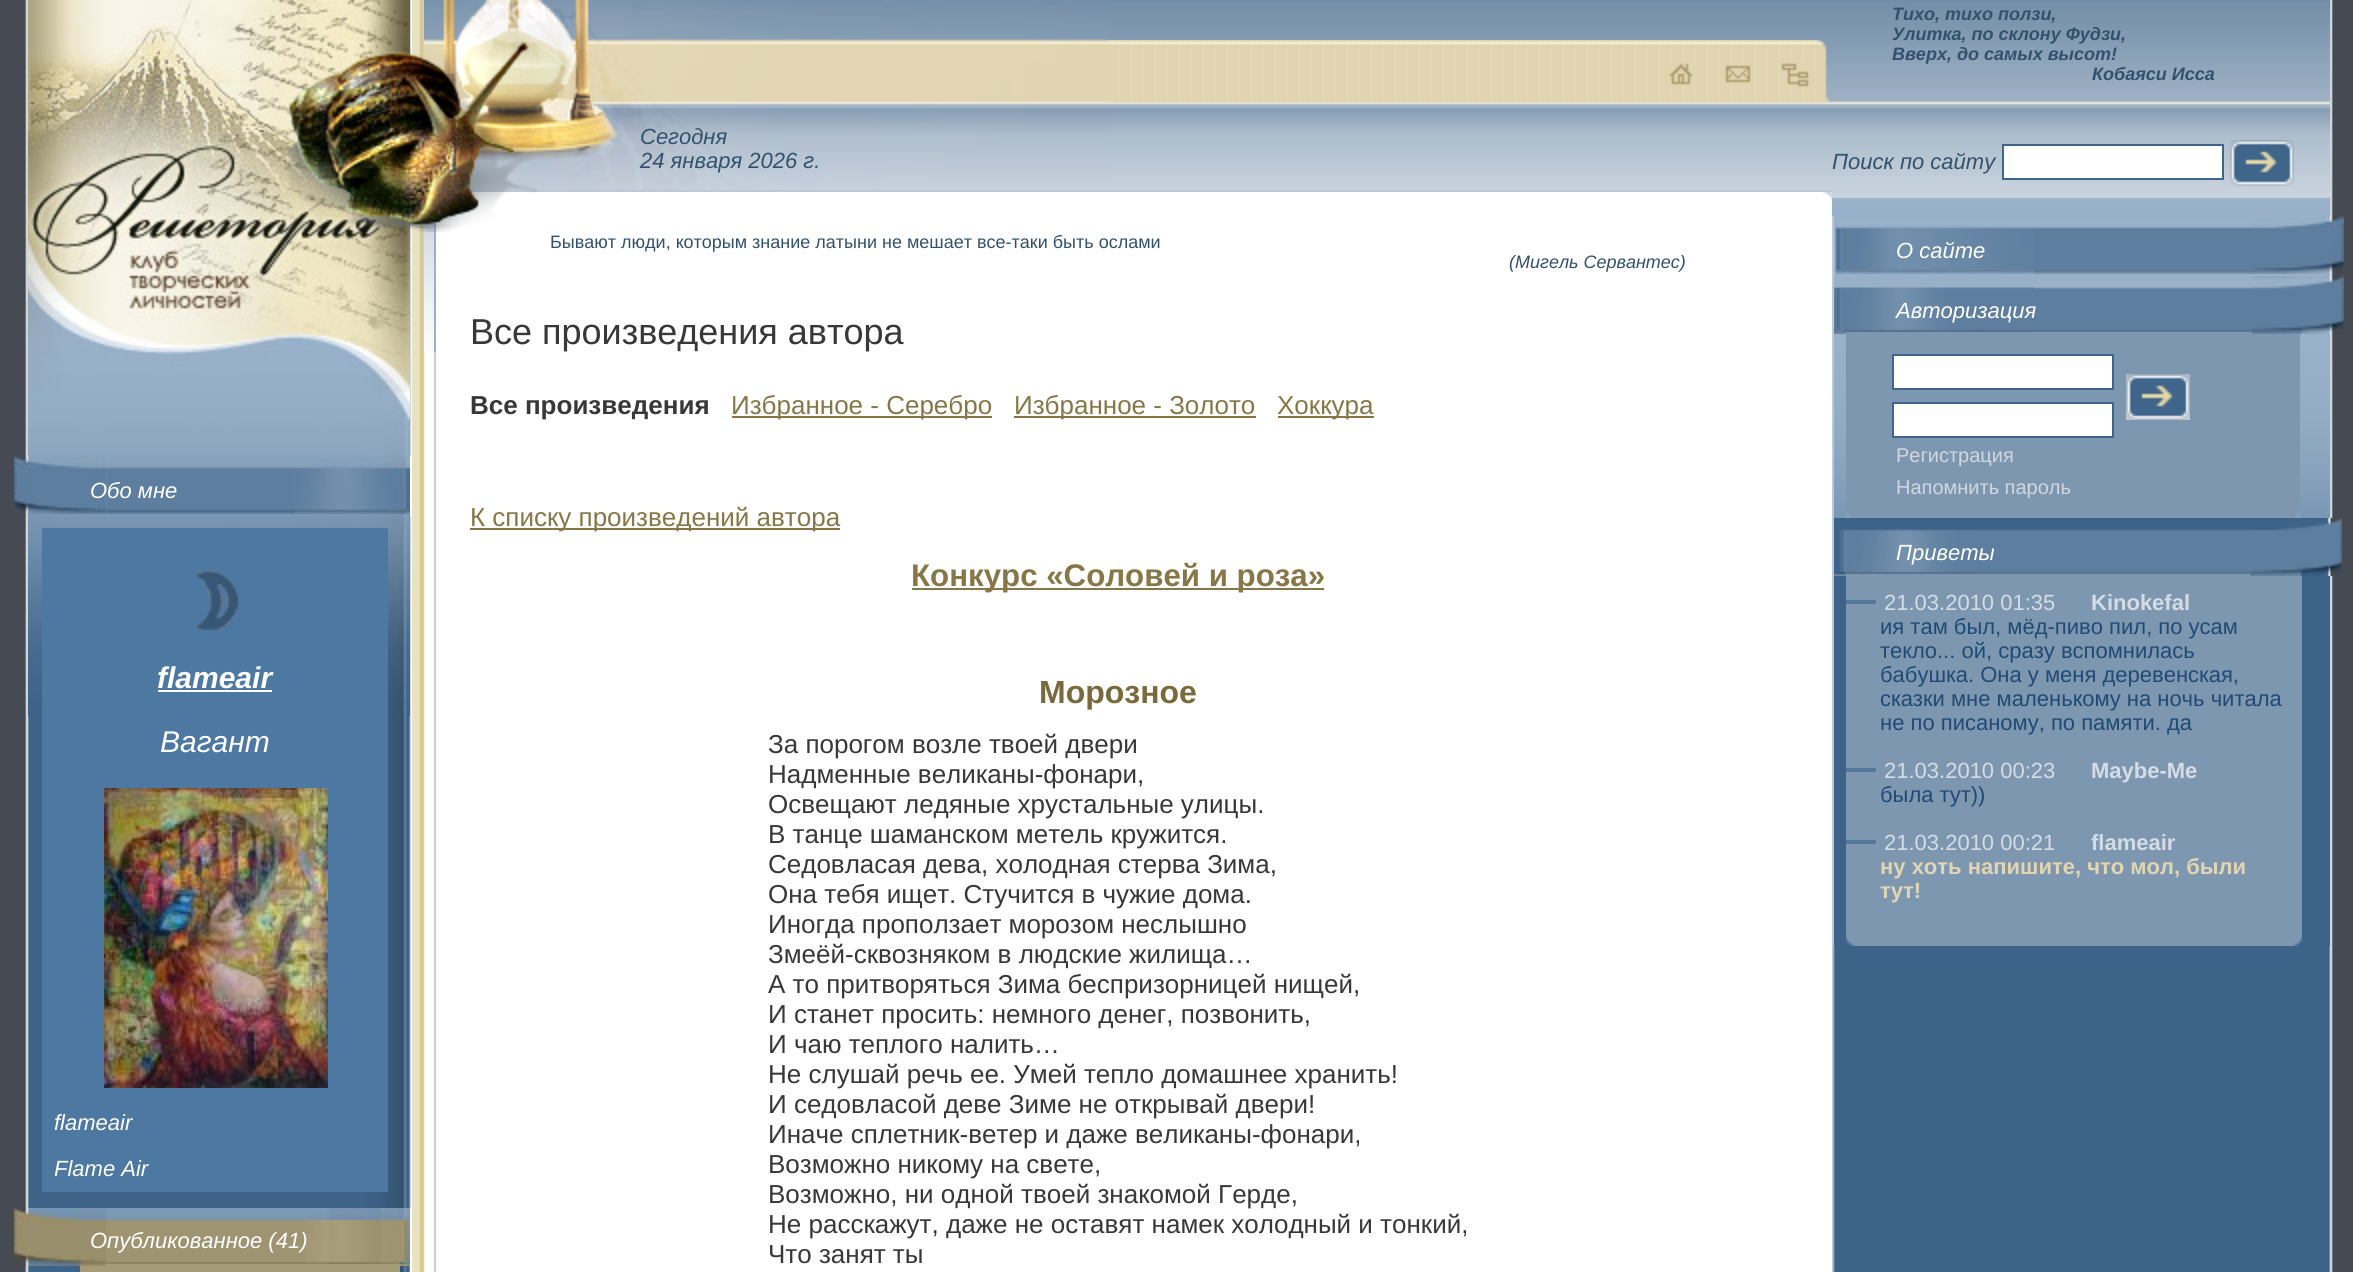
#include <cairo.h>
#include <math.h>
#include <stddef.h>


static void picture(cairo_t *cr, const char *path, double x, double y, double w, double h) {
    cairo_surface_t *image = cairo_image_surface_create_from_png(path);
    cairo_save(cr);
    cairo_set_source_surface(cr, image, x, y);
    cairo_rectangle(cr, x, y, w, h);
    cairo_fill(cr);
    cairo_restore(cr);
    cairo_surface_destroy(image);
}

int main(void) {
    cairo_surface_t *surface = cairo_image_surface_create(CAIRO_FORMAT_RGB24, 2353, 1272);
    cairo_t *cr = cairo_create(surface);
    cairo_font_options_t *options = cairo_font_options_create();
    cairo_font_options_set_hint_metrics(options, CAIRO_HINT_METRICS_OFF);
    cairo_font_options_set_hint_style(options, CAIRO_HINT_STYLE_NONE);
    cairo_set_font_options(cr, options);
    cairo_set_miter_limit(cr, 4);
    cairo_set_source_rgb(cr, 1, 1, 1);
    cairo_paint(cr);
    picture(cr, "img1.png", 0, 0, 412, 1272);
    picture(cr, "img2.png", 28, 0, 382, 716);
    picture(cr, "img3.png", 28, 130, 354, 196);
    picture(cr, "img4.png", 108, 456, 186, 58);
    cairo_set_source_rgb(cr, 1, 1, 1);
    cairo_rectangle(cr, 410, 456, 2, 60);
    cairo_fill(cr);
    picture(cr, "img5.png", 14, 456, 94, 58);
    picture(cr, "img6.png", 294, 456, 116, 58);
    cairo_select_font_face(cr, "Liberation Sans", CAIRO_FONT_SLANT_ITALIC, CAIRO_FONT_WEIGHT_NORMAL);
    cairo_set_font_size(cr, 22);
    cairo_move_to(cr, 90, 498);
    cairo_show_text(cr, "Обо мне");
    cairo_set_source_rgb(cr, 0.302, 0.471, 0.631);
    cairo_rectangle(cr, 42, 528, 346, 664);
    cairo_fill(cr);
    picture(cr, "img7.png", 195, 570, 44, 60);
    cairo_select_font_face(cr, "Liberation Sans", CAIRO_FONT_SLANT_ITALIC, CAIRO_FONT_WEIGHT_BOLD);
    cairo_set_font_size(cr, 30);
    cairo_set_source_rgb(cr, 1, 1, 1);
    cairo_move_to(cr, 157, 688);
    cairo_show_text(cr, "flameair");
    cairo_rectangle(cr, 158, 690, 114, 2);
    cairo_fill(cr);
    cairo_select_font_face(cr, "Liberation Sans", CAIRO_FONT_SLANT_ITALIC, CAIRO_FONT_WEIGHT_NORMAL);
    cairo_move_to(cr, 160, 752);
    cairo_show_text(cr, "Вагант");
    picture(cr, "img8.png", 104, 788, 224, 300);
    cairo_set_font_size(cr, 22);
    cairo_move_to(cr, 54, 1130);
    cairo_show_text(cr, "flameair");
    cairo_move_to(cr, 54, 1176);
    cairo_show_text(cr, "Flame Air");
    picture(cr, "img9.png", 106, 1208, 304, 58);
    cairo_rectangle(cr, 410, 1208, 2, 64);
    cairo_fill(cr);
    cairo_set_source_rgb(cr, 0.651, 0.608, 0.467);
    cairo_rectangle(cr, 80, 1264, 320, 8);
    cairo_fill(cr);
    picture(cr, "img10.png", 14, 1208, 92, 58);
    picture(cr, "img11.png", 305, 1208, 105, 56);
    cairo_set_source_rgb(cr, 1, 1, 1);
    cairo_move_to(cr, 90, 1248);
    cairo_show_text(cr, "Опубликованное (41)");
    picture(cr, "img12.png", 412, 0, 24, 1272);
    picture(cr, "img14.png", 434, 0, 1398, 352);
    picture(cr, "img15.png", 424, 0, 10, 352);
    picture(cr, "img17.png", 434, 0, 674, 190);
    cairo_rectangle(cr, 436, 192, 1396, 160);
    cairo_fill(cr);
    cairo_set_source_rgb(cr, 0.733, 0.784, 0.839);
    cairo_rectangle(cr, 467, 190, 1365, 2);
    cairo_fill(cr);
    picture(cr, "img13.png", 280, 0, 338, 232);
    picture(cr, "img16.png", 1108, 40, 708, 62);
    picture(cr, "img18.png", 1816, 40, 16, 62);
    picture(cr, "img19.png", 1669, 63, 24, 22);
    picture(cr, "img20.png", 1725, 65, 26, 18);
    picture(cr, "img21.png", 1781, 63, 28, 24);
    cairo_set_source_rgb(cr, 0.196, 0.318, 0.427);
    cairo_move_to(cr, 640, 144);
    cairo_show_text(cr, "Сегодня");
    cairo_move_to(cr, 640, 168);
    cairo_show_text(cr, "24 января 2026 г.");
    picture(cr, "img22.png", 1822, 192, 10, 9);
    cairo_select_font_face(cr, "Liberation Sans", CAIRO_FONT_SLANT_NORMAL, CAIRO_FONT_WEIGHT_NORMAL);
    cairo_set_font_size(cr, 18);
    cairo_move_to(cr, 550, 248);
    cairo_show_text(cr, "Бывают люди, которым знание латыни не мешает все-таки быть ослами");
    cairo_select_font_face(cr, "Liberation Sans", CAIRO_FONT_SLANT_ITALIC, CAIRO_FONT_WEIGHT_NORMAL);
    cairo_move_to(cr, 1509, 268);
    cairo_show_text(cr, "(Мигель Сервантес)");
    cairo_select_font_face(cr, "Liberation Sans", CAIRO_FONT_SLANT_NORMAL, CAIRO_FONT_WEIGHT_NORMAL);
    cairo_set_font_size(cr, 36);
    cairo_set_source_rgb(cr, 0.22, 0.22, 0.22);
    cairo_move_to(cr, 470, 344);
    cairo_show_text(cr, "Все произведения автора");
    cairo_select_font_face(cr, "Liberation Sans", CAIRO_FONT_SLANT_NORMAL, CAIRO_FONT_WEIGHT_BOLD);
    cairo_set_font_size(cr, 26);
    cairo_move_to(cr, 470, 414);
    cairo_show_text(cr, "Все произведения");
    cairo_set_source_rgb(cr, 0.529, 0.467, 0.278);
    cairo_rectangle(cr, 732, 416, 260, 2);
    cairo_fill(cr);
    cairo_select_font_face(cr, "Liberation Sans", CAIRO_FONT_SLANT_NORMAL, CAIRO_FONT_WEIGHT_NORMAL);
    cairo_move_to(cr, 731, 414);
    cairo_show_text(cr, "Избранное - Серебро");
    cairo_rectangle(cr, 1014, 416, 242, 2);
    cairo_fill(cr);
    cairo_move_to(cr, 1014, 414);
    cairo_show_text(cr, "Избранное - Золото");
    cairo_rectangle(cr, 1278, 416, 96, 2);
    cairo_fill(cr);
    cairo_move_to(cr, 1277, 414);
    cairo_show_text(cr, "Хоккура");
    cairo_rectangle(cr, 470, 528, 370, 2);
    cairo_fill(cr);
    cairo_move_to(cr, 470, 526);
    cairo_show_text(cr, "К списку произведений автора");
    cairo_rectangle(cr, 912, 588, 412, 2);
    cairo_fill(cr);
    cairo_select_font_face(cr, "Liberation Sans", CAIRO_FONT_SLANT_NORMAL, CAIRO_FONT_WEIGHT_BOLD);
    cairo_set_font_size(cr, 31.25);
    cairo_move_to(cr, 911, 586);
    cairo_show_text(cr, "Конкурс «Соловей и роза»");
    cairo_set_font_size(cr, 32);
    cairo_set_source_rgb(cr, 0.475, 0.416, 0.231);
    cairo_move_to(cr, 1039, 703);
    cairo_show_text(cr, "Морозное");
    cairo_select_font_face(cr, "Liberation Sans", CAIRO_FONT_SLANT_NORMAL, CAIRO_FONT_WEIGHT_NORMAL);
    cairo_set_font_size(cr, 26);
    cairo_set_source_rgb(cr, 0.22, 0.22, 0.22);
    cairo_move_to(cr, 768, 753);
    cairo_show_text(cr, "За порогом возле твоей двери");
    cairo_move_to(cr, 768, 783);
    cairo_show_text(cr, "Надменные великаны-фонари,");
    cairo_move_to(cr, 768, 813);
    cairo_show_text(cr, "Освещают ледяные хрустальные улицы.");
    cairo_move_to(cr, 768, 843);
    cairo_show_text(cr, "В танце шаманском метель кружится.");
    cairo_move_to(cr, 768, 873);
    cairo_show_text(cr, "Седовласая дева, холодная стерва Зима,");
    cairo_move_to(cr, 768, 903);
    cairo_show_text(cr, "Она тебя ищет. Стучится в чужие дома.");
    cairo_move_to(cr, 768, 933);
    cairo_show_text(cr, "Иногда проползает морозом неслышно");
    cairo_move_to(cr, 768, 963);
    cairo_show_text(cr, "Змеёй-сквозняком в людские жилища…");
    cairo_move_to(cr, 768, 993);
    cairo_show_text(cr, "А то притворяться Зима беспризорницей нищей,");
    cairo_move_to(cr, 768, 1023);
    cairo_show_text(cr, "И станет просить: немного денег, позвонить,");
    cairo_move_to(cr, 768, 1053);
    cairo_show_text(cr, "И чаю теплого налить…");
    cairo_move_to(cr, 768, 1083);
    cairo_show_text(cr, "Не слушай речь ее. Умей тепло домашнее хранить!");
    cairo_move_to(cr, 768, 1113);
    cairo_show_text(cr, "И седовласой деве Зиме не открывай двери!");
    cairo_move_to(cr, 768, 1143);
    cairo_show_text(cr, "Иначе сплетник-ветер и даже великаны-фонари,");
    cairo_move_to(cr, 768, 1173);
    cairo_show_text(cr, "Возможно никому на свете,");
    cairo_move_to(cr, 768, 1203);
    cairo_show_text(cr, "Возможно, ни одной твоей знакомой Герде,");
    cairo_move_to(cr, 768, 1233);
    cairo_show_text(cr, "Не расскажут, даже не оставят намек холодный и тонкий,");
    cairo_move_to(cr, 768, 1263);
    cairo_show_text(cr, "Что занят ты");
    picture(cr, "img23.png", 1832, 0, 521, 1272);
    picture(cr, "img24.png", 1832, 0, 498, 518);
    cairo_select_font_face(cr, "Liberation Sans", CAIRO_FONT_SLANT_ITALIC, CAIRO_FONT_WEIGHT_BOLD);
    cairo_set_font_size(cr, 18);
    cairo_set_source_rgb(cr, 0.196, 0.318, 0.427);
    cairo_move_to(cr, 1892, 20);
    cairo_show_text(cr, "Тихо, тихо ползи,");
    cairo_move_to(cr, 1892, 40);
    cairo_show_text(cr, "Улитка, по склону Фудзи,");
    cairo_move_to(cr, 1892, 60);
    cairo_show_text(cr, "Вверх, до самых высот!");
    cairo_move_to(cr, 2092, 80);
    cairo_show_text(cr, "Кобаяси Исса");
    cairo_select_font_face(cr, "Liberation Sans", CAIRO_FONT_SLANT_ITALIC, CAIRO_FONT_WEIGHT_NORMAL);
    cairo_set_font_size(cr, 22);
    cairo_move_to(cr, 1832, 169);
    cairo_show_text(cr, "Поиск по сайту");
    cairo_set_source_rgb(cr, 1, 1, 1);
    cairo_rectangle(cr, 2003, 145, 220, 34);
    cairo_fill_preserve(cr);
    cairo_set_source_rgb(cr, 0.247, 0.396, 0.541);
    cairo_stroke(cr);
    picture(cr, "img25.png", 2230, 140, 64, 46);
    picture(cr, "img26.png", 2034, 226, 218, 48);
    cairo_set_source_rgb(cr, 0.733, 0.784, 0.839);
    cairo_rectangle(cr, 1832, 216, 2, 302);
    cairo_fill(cr);
    picture(cr, "img27.png", 1834, 225, 200, 49);
    cairo_set_source_rgb(cr, 1, 1, 1);
    cairo_move_to(cr, 1896, 258);
    cairo_show_text(cr, "О сайте");
    picture(cr, "img28.png", 2252, 216, 92, 58);
    picture(cr, "img29.png", 1834, 287, 418, 47);
    picture(cr, "img30.png", 1835, 287, 199, 45);
    cairo_move_to(cr, 1896, 318);
    cairo_show_text(cr, "Авторизация");
    cairo_set_source_rgb(cr, 0.49, 0.592, 0.694);
    cairo_rectangle(cr, 1846, 332, 454, 186);
    cairo_fill(cr);
    picture(cr, "img31.png", 2252, 276, 92, 58);
    picture(cr, "img32.png", 2294, 511, 6, 7);
    picture(cr, "img33.png", 1846, 511, 6, 7);
    cairo_set_source_rgb(cr, 1, 1, 1);
    cairo_rectangle(cr, 1893, 355, 220, 34);
    cairo_fill_preserve(cr);
    cairo_set_source_rgb(cr, 0.247, 0.396, 0.541);
    cairo_stroke(cr);
    picture(cr, "img25.png", 2126, 374, 64, 46);
    cairo_set_source_rgb(cr, 1, 1, 1);
    cairo_rectangle(cr, 1893, 403, 220, 34);
    cairo_fill_preserve(cr);
    cairo_set_source_rgb(cr, 0.247, 0.396, 0.541);
    cairo_stroke(cr);
    cairo_select_font_face(cr, "Liberation Sans", CAIRO_FONT_SLANT_NORMAL, CAIRO_FONT_WEIGHT_NORMAL);
    cairo_set_font_size(cr, 20);
    cairo_set_source_rgb(cr, 0.82, 0.843, 0.871);
    cairo_move_to(cr, 1896, 462);
    cairo_show_text(cr, "Регистрация");
    cairo_move_to(cr, 1896, 494);
    cairo_show_text(cr, "Напомнить пароль");
    cairo_set_source_rgb(cr, 0.239, 0.388, 0.533);
    cairo_rectangle(cr, 1834, 518, 496, 428);
    cairo_fill(cr);
    picture(cr, "img34.png", 1834, 529, 416, 47);
    cairo_set_source_rgb(cr, 0.733, 0.784, 0.839);
    cairo_rectangle(cr, 1833, 518, 1, 428);
    cairo_fill(cr);
    picture(cr, "img35.png", 1834, 529, 142, 45);
    cairo_select_font_face(cr, "Liberation Sans", CAIRO_FONT_SLANT_ITALIC, CAIRO_FONT_WEIGHT_NORMAL);
    cairo_set_font_size(cr, 22);
    cairo_set_source_rgb(cr, 1, 1, 1);
    cairo_move_to(cr, 1896, 560);
    cairo_show_text(cr, "Приветы");
    cairo_set_source_rgb(cr, 0.49, 0.592, 0.694);
    cairo_rectangle(cr, 1846, 574, 456, 372);
    cairo_fill(cr);
    picture(cr, "img36.png", 2250, 518, 92, 58);
    picture(cr, "img37.png", 2292, 935, 10, 11);
    picture(cr, "img38.png", 1846, 935, 10, 11);
    picture(cr, "img39.png", 1846, 600, 30, 4);
    cairo_select_font_face(cr, "Liberation Sans", CAIRO_FONT_SLANT_NORMAL, CAIRO_FONT_WEIGHT_NORMAL);
    cairo_set_source_rgb(cr, 0.831, 0.863, 0.898);
    cairo_move_to(cr, 1884, 610);
    cairo_show_text(cr, "21.03.2010 01:35");
    cairo_select_font_face(cr, "Liberation Sans", CAIRO_FONT_SLANT_NORMAL, CAIRO_FONT_WEIGHT_BOLD);
    cairo_move_to(cr, 2091, 610);
    cairo_show_text(cr, "Kinokefal");
    cairo_select_font_face(cr, "Liberation Sans", CAIRO_FONT_SLANT_NORMAL, CAIRO_FONT_WEIGHT_NORMAL);
    cairo_set_source_rgb(cr, 0.125, 0.29, 0.451);
    cairo_move_to(cr, 1880, 634);
    cairo_show_text(cr, "ия там был, мёд-пиво пил, по усам");
    cairo_move_to(cr, 1880, 658);
    cairo_show_text(cr, "текло... ой, сразу вспомнилась");
    cairo_move_to(cr, 1880, 682);
    cairo_show_text(cr, "бабушка. Она у меня деревенская,");
    cairo_move_to(cr, 1880, 706);
    cairo_show_text(cr, "сказки мне маленькому на ночь читала");
    cairo_move_to(cr, 1880, 730);
    cairo_show_text(cr, "не по писаному, по памяти. да");
    picture(cr, "img39.png", 1846, 768, 30, 4);
    cairo_set_source_rgb(cr, 0.831, 0.863, 0.898);
    cairo_move_to(cr, 1884, 778);
    cairo_show_text(cr, "21.03.2010 00:23");
    cairo_select_font_face(cr, "Liberation Sans", CAIRO_FONT_SLANT_NORMAL, CAIRO_FONT_WEIGHT_BOLD);
    cairo_move_to(cr, 2091, 778);
    cairo_show_text(cr, "Maybe-Me");
    cairo_select_font_face(cr, "Liberation Sans", CAIRO_FONT_SLANT_NORMAL, CAIRO_FONT_WEIGHT_NORMAL);
    cairo_set_source_rgb(cr, 0.125, 0.29, 0.451);
    cairo_move_to(cr, 1880, 802);
    cairo_show_text(cr, "была тут))");
    picture(cr, "img39.png", 1846, 840, 30, 4);
    cairo_set_source_rgb(cr, 0.831, 0.863, 0.898);
    cairo_move_to(cr, 1884, 850);
    cairo_show_text(cr, "21.03.2010 00:21");
    cairo_select_font_face(cr, "Liberation Sans", CAIRO_FONT_SLANT_NORMAL, CAIRO_FONT_WEIGHT_BOLD);
    cairo_move_to(cr, 2091, 850);
    cairo_show_text(cr, "flameair");
    cairo_set_source_rgb(cr, 0.886, 0.835, 0.698);
    cairo_move_to(cr, 1880, 874);
    cairo_show_text(cr, "ну хоть напишите, что мол, были");
    cairo_move_to(cr, 1880, 898);
    cairo_show_text(cr, "тут!");
    cairo_surface_write_to_png(surface, "page.png");
    cairo_font_options_destroy(options);
    cairo_destroy(cr);
    cairo_surface_destroy(surface);
    return 0;
}
